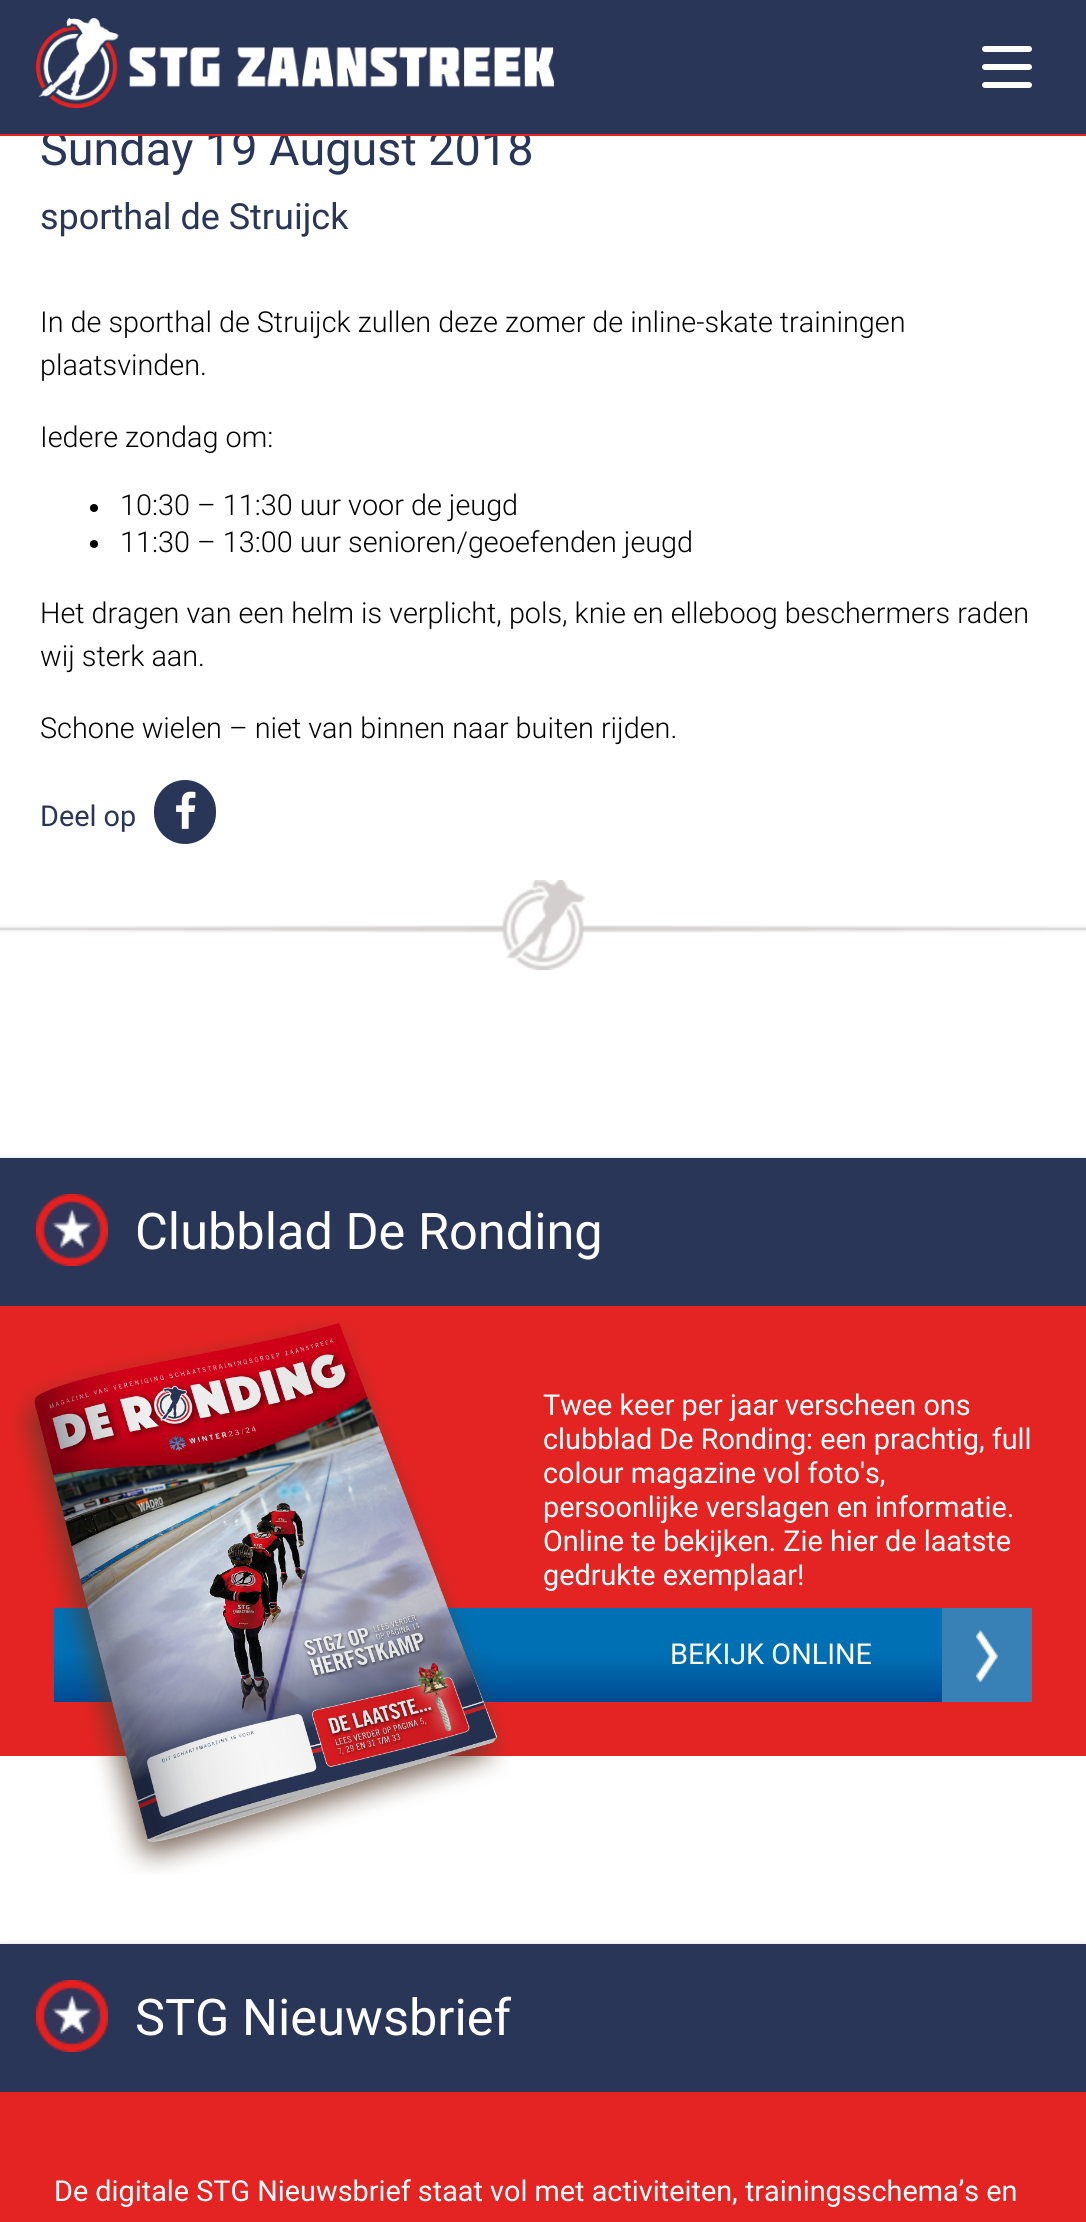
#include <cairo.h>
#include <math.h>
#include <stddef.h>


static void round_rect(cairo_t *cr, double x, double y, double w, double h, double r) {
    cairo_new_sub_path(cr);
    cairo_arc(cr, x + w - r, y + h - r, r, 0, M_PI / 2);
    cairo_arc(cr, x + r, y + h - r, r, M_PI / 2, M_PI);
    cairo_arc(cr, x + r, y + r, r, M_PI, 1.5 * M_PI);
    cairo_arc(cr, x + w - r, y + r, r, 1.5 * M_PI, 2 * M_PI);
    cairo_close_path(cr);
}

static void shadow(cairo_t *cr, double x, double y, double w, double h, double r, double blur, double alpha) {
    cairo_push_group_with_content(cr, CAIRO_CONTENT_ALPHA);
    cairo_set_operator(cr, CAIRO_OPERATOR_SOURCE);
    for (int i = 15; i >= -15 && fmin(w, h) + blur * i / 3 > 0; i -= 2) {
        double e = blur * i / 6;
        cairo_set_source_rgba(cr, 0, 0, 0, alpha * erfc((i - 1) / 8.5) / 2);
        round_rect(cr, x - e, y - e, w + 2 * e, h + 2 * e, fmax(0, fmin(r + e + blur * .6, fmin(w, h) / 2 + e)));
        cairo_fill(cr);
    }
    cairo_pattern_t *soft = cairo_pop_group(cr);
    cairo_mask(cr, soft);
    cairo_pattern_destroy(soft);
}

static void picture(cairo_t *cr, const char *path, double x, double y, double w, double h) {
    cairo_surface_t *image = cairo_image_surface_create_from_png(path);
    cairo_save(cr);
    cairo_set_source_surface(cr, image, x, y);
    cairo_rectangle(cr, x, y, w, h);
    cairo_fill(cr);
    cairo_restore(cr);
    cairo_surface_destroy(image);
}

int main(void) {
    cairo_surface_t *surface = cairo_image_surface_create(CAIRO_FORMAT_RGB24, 1086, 2222);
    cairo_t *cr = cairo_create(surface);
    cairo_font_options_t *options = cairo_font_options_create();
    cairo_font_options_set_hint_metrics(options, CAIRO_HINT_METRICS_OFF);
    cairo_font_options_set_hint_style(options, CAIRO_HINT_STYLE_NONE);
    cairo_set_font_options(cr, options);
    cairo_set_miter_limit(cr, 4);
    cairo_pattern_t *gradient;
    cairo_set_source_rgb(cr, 1, 1, 1);
    cairo_paint(cr);
    cairo_set_source_rgb(cr, 0.161, 0.212, 0.345);
    cairo_rectangle(cr, 0, 0, 1086, 134);
    cairo_fill(cr);
    cairo_select_font_face(cr, "Roboto", CAIRO_FONT_SLANT_NORMAL, CAIRO_FONT_WEIGHT_NORMAL);
    cairo_set_font_size(cr, 46.75);
    cairo_move_to(cr, 40, 165);
    cairo_show_text(cr, "Sunday 19 August 2018");
    cairo_set_source_rgb(cr, 0.894, 0.141, 0.137);
    cairo_rectangle(cr, 0, 134, 1086, 2);
    cairo_fill(cr);
    picture(cr, "img1.png", 36, 18, 518, 90);
    cairo_set_source_rgb(cr, 1, 1, 1);
    round_rect(cr, 982, 46, 50, 6, 3);
    cairo_fill(cr);
    round_rect(cr, 982, 64, 50, 6, 3);
    cairo_fill(cr);
    round_rect(cr, 982, 82, 50, 6, 3);
    cairo_fill(cr);
    cairo_set_font_size(cr, 36);
    cairo_set_source_rgb(cr, 0.161, 0.212, 0.345);
    cairo_move_to(cr, 40, 229);
    cairo_show_text(cr, "sporthal de Struijck");
    cairo_select_font_face(cr, "Roboto Light", CAIRO_FONT_SLANT_NORMAL, CAIRO_FONT_WEIGHT_NORMAL);
    cairo_set_font_size(cr, 28.8);
    cairo_set_source_rgb(cr, 0, 0, 0);
    cairo_move_to(cr, 40, 332);
    cairo_show_text(cr, "In de sporthal de Struijck zullen deze zomer de inline-skate trainingen");
    cairo_move_to(cr, 40, 375);
    cairo_show_text(cr, "plaatsvinden.");
    cairo_move_to(cr, 40, 447);
    cairo_show_text(cr, "Iedere zondag om:");
    cairo_new_path(cr);
    cairo_arc(cr, 94, 508, 4, 0, 2 * M_PI);
    cairo_fill(cr);
    cairo_move_to(cr, 120, 515);
    cairo_show_text(cr, "10:30 – 11:30 uur voor de jeugd");
    cairo_new_path(cr);
    cairo_arc(cr, 94, 544, 4, 0, 2 * M_PI);
    cairo_fill(cr);
    cairo_move_to(cr, 120, 552);
    cairo_show_text(cr, "11:30 – 13:00 uur senioren/geoefenden jeugd");
    cairo_move_to(cr, 40, 623);
    cairo_show_text(cr, "Het dragen van een helm is verplicht, pols, knie en elleboog beschermers raden");
    cairo_move_to(cr, 40, 666);
    cairo_show_text(cr, "wij sterk aan.");
    cairo_move_to(cr, 40, 738);
    cairo_show_text(cr, "Schone wielen – niet van binnen naar buiten rijden.");
    cairo_select_font_face(cr, "Roboto", CAIRO_FONT_SLANT_NORMAL, CAIRO_FONT_WEIGHT_NORMAL);
    cairo_set_source_rgb(cr, 0.161, 0.212, 0.345);
    cairo_move_to(cr, 40, 826);
    cairo_show_text(cr, "Deel op");
    round_rect(cr, 154, 780, 62, 64, 31);
    cairo_fill(cr);
    picture(cr, "img2.png", 176, 791, 20, 38);
    picture(cr, "img3.png", 0, 880, 1086, 90);
    cairo_set_source_rgb(cr, 0, 0, 0);
    shadow(cr, 0, 1164, 1086, 148, 0, 6, 0.23);
    shadow(cr, 0, 1164, 1086, 148, 0, 6, 0.16);
    cairo_set_source_rgb(cr, 0.161, 0.212, 0.345);
    cairo_rectangle(cr, 0, 1158, 1086, 148);
    cairo_fill(cr);
    picture(cr, "img4.png", 36, 1194, 72, 72);
    cairo_set_font_size(cr, 50.5);
    cairo_set_source_rgb(cr, 1, 1, 1);
    cairo_move_to(cr, 135, 1249);
    cairo_show_text(cr, "Clubblad De Ronding");
    cairo_set_source_rgb(cr, 0.894, 0.141, 0.137);
    cairo_rectangle(cr, 0, 1306, 1086, 450);
    cairo_fill(cr);
    gradient = cairo_pattern_create_linear(543, 1608, 543, 1702);
    cairo_pattern_add_color_stop_rgba(gradient, 0.01, 0, 0.439, 0.71, 1);
    cairo_pattern_add_color_stop_rgba(gradient, 0.47, 0, 0.439, 0.71, 1);
    cairo_pattern_add_color_stop_rgba(gradient, 0.73, 0, 0.376, 0.643, 1);
    cairo_pattern_add_color_stop_rgba(gradient, 1, 0, 0.29, 0.576, 1);
    cairo_set_source(cr, gradient);
    cairo_pattern_destroy(gradient);
    cairo_rectangle(cr, 54, 1608, 888, 94);
    cairo_fill(cr);
    picture(cr, "img5.png", 11, 1318, 498, 556);
    cairo_set_font_size(cr, 28.8);
    cairo_set_source_rgb(cr, 1, 1, 1);
    cairo_move_to(cr, 543, 1415);
    cairo_show_text(cr, "Twee keer per jaar verscheen ons");
    cairo_move_to(cr, 543, 1449);
    cairo_show_text(cr, "clubblad De Ronding: een prachtig, full");
    cairo_move_to(cr, 543, 1483);
    cairo_show_text(cr, "colour magazine vol foto's,");
    cairo_move_to(cr, 543, 1517);
    cairo_show_text(cr, "persoonlijke verslagen en informatie.");
    cairo_move_to(cr, 543, 1551);
    cairo_show_text(cr, "Online te bekijken. Zie hier de laatste");
    cairo_move_to(cr, 543, 1585);
    cairo_show_text(cr, "gedrukte exemplaar!");
    cairo_move_to(cr, 670, 1664);
    cairo_show_text(cr, "BEKIJK ONLINE");
    cairo_set_source_rgb(cr, 0.22, 0.506, 0.714);
    cairo_rectangle(cr, 942, 1608, 90, 94);
    cairo_fill(cr);
    picture(cr, "img6.png", 976, 1630, 22, 52);
    cairo_set_source_rgb(cr, 0, 0, 0);
    shadow(cr, 0, 1950, 1086, 148, 0, 6, 0.23);
    shadow(cr, 0, 1950, 1086, 148, 0, 6, 0.16);
    cairo_set_source_rgb(cr, 0.161, 0.212, 0.345);
    cairo_rectangle(cr, 0, 1944, 1086, 148);
    cairo_fill(cr);
    picture(cr, "img7.png", 36, 1980, 72, 72);
    cairo_set_font_size(cr, 50.5);
    cairo_set_source_rgb(cr, 1, 1, 1);
    cairo_move_to(cr, 135, 2035);
    cairo_show_text(cr, "STG Nieuwsbrief");
    cairo_set_source_rgb(cr, 0.894, 0.141, 0.137);
    cairo_rectangle(cr, 0, 2092, 1086, 130);
    cairo_fill(cr);
    cairo_set_font_size(cr, 28.8);
    cairo_set_source_rgb(cr, 1, 1, 1);
    cairo_move_to(cr, 54, 2201);
    cairo_show_text(cr, "De digitale STG Nieuwsbrief staat vol met activiteiten, trainingsschema’s en");
    cairo_surface_write_to_png(surface, "page.png");
    cairo_font_options_destroy(options);
    cairo_destroy(cr);
    cairo_surface_destroy(surface);
    return 0;
}
